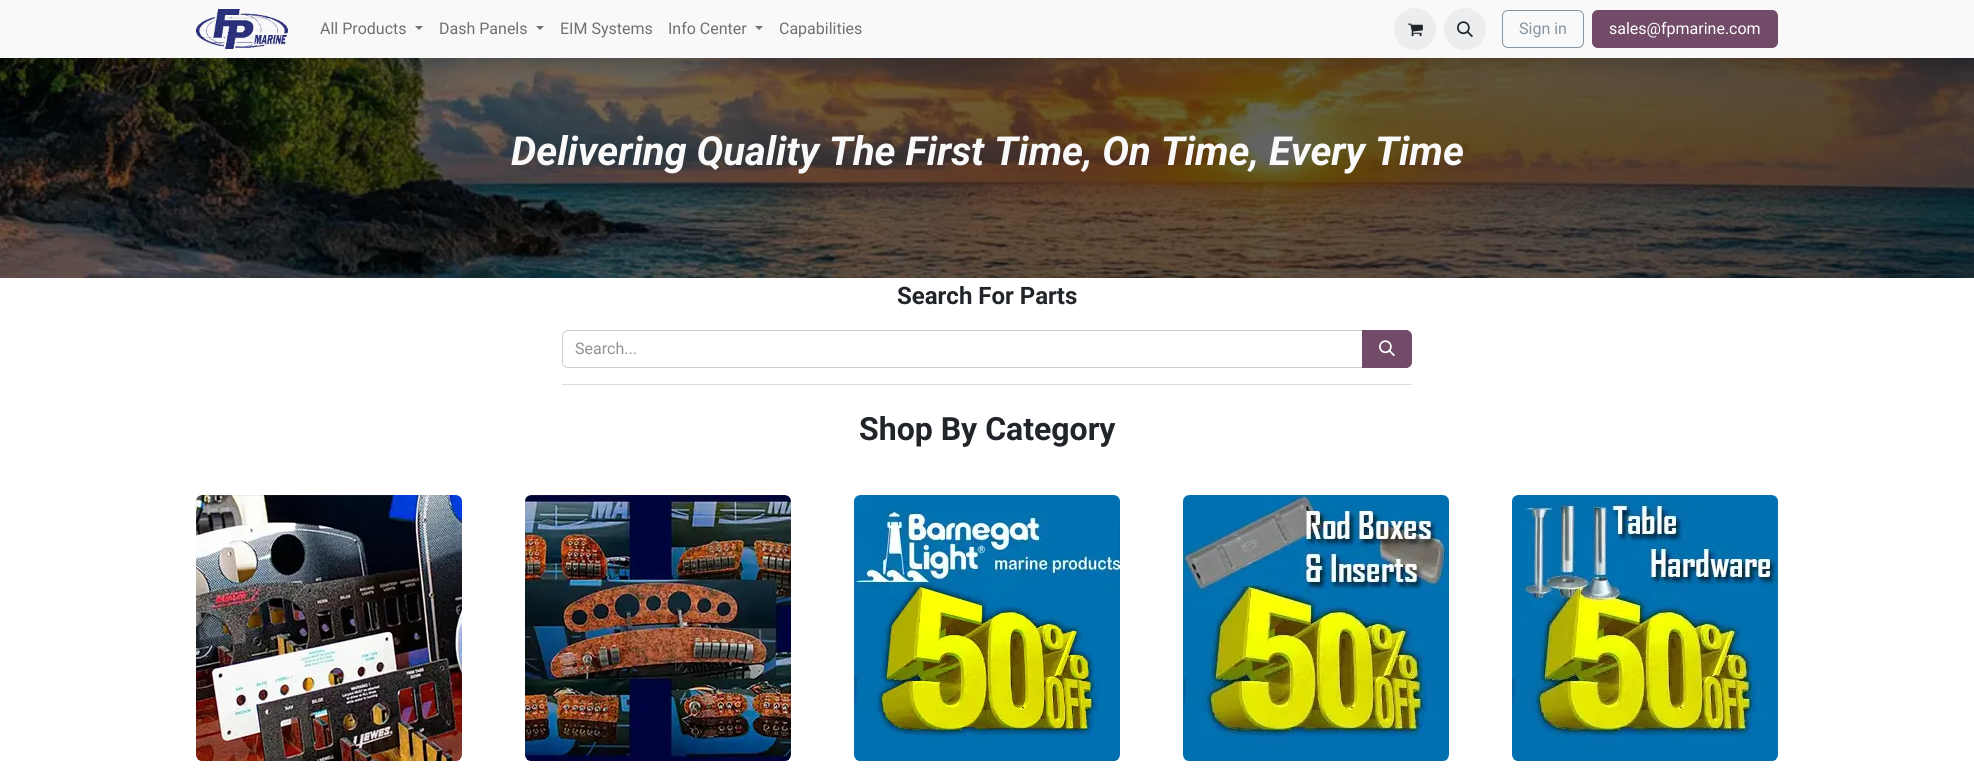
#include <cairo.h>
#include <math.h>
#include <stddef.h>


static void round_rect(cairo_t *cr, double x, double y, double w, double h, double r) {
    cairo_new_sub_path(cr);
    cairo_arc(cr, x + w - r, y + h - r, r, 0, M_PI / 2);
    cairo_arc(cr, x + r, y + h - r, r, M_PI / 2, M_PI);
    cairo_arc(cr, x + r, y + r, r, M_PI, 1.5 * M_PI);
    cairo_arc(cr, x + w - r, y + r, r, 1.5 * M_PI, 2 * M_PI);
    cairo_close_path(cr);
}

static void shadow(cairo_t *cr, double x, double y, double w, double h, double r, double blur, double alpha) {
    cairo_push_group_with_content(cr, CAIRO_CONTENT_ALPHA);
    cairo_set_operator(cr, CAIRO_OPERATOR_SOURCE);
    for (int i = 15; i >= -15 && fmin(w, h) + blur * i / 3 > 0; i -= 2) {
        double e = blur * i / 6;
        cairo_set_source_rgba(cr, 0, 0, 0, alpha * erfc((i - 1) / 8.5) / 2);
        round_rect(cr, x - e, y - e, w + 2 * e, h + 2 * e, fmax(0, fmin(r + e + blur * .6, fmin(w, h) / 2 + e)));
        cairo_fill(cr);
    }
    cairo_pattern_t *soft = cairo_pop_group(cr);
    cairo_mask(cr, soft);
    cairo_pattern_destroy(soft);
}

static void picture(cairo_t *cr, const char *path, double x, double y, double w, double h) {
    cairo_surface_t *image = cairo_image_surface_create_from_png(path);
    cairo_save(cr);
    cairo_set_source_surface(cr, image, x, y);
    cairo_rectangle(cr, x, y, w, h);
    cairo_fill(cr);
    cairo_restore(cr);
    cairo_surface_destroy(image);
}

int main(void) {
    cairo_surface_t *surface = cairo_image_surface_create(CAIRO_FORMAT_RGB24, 1974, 769);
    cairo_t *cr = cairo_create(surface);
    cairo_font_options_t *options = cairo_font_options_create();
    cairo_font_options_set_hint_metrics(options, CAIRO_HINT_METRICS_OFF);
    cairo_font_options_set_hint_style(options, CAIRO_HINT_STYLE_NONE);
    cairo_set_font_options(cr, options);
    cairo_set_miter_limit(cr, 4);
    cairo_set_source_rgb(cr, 1, 1, 1);
    cairo_paint(cr);
    picture(cr, "img4.png", 0, 58, 1974, 220);
    cairo_set_source_rgb(cr, 0, 0, 0);
    shadow(cr, 0, 8, 1974, 58, 0, 8, 0.15);
    cairo_set_source_rgb(cr, 0.973, 0.976, 0.98);
    cairo_rectangle(cr, 0, 0, 1974, 58);
    cairo_fill(cr);
    picture(cr, "img1.png", 196, 9, 92, 40);
    cairo_select_font_face(cr, "Roboto", CAIRO_FONT_SLANT_NORMAL, CAIRO_FONT_WEIGHT_NORMAL);
    cairo_set_font_size(cr, 16);
    cairo_set_source_rgb(cr, 0.439, 0.439, 0.443);
    cairo_move_to(cr, 320, 34);
    cairo_show_text(cr, "All Products");
    cairo_new_path(cr);
    cairo_move_to(cr, 415, 26);
    cairo_line_to(cr, 423, 26);
    cairo_line_to(cr, 419, 30);
    cairo_close_path(cr);
    cairo_fill(cr);
    cairo_move_to(cr, 439, 34);
    cairo_show_text(cr, "Dash Panels");
    cairo_new_path(cr);
    cairo_move_to(cr, 536, 26);
    cairo_line_to(cr, 544, 26);
    cairo_line_to(cr, 540, 30);
    cairo_close_path(cr);
    cairo_fill(cr);
    cairo_move_to(cr, 560, 34);
    cairo_show_text(cr, "EIM Systems");
    cairo_move_to(cr, 668, 34);
    cairo_show_text(cr, "Info Center");
    cairo_new_path(cr);
    cairo_move_to(cr, 755, 26);
    cairo_line_to(cr, 763, 26);
    cairo_line_to(cr, 759, 30);
    cairo_close_path(cr);
    cairo_fill(cr);
    cairo_move_to(cr, 779, 34);
    cairo_show_text(cr, "Capabilities");
    cairo_set_source_rgb(cr, 0.925, 0.929, 0.933);
    cairo_new_path(cr);
    cairo_arc(cr, 1415, 29, 21, 0, 2 * M_PI);
    cairo_fill(cr);
    picture(cr, "img2.png", 1408, 23, 15, 14);
    cairo_arc(cr, 1465, 29, 21, 0, 2 * M_PI);
    cairo_fill(cr);
    picture(cr, "img3.png", 1457, 21, 16, 17);
    round_rect(cr, 1502.5, 10.5, 81, 37, 5.5);
    cairo_set_source_rgb(cr, 0.522, 0.584, 0.635);
    cairo_set_line_width(cr, 1);
    cairo_stroke(cr);
    cairo_move_to(cr, 1519, 34);
    cairo_show_text(cr, "Sign in");
    cairo_set_source_rgb(cr, 0.443, 0.294, 0.404);
    round_rect(cr, 1592.5, 10.5, 185, 37, 5.5);
    cairo_fill_preserve(cr);
    cairo_stroke(cr);
    cairo_set_source_rgb(cr, 1, 1, 1);
    cairo_move_to(cr, 1609, 34);
    cairo_show_text(cr, "sales@fpmarine.com");
    cairo_select_font_face(cr, "Roboto", CAIRO_FONT_SLANT_ITALIC, CAIRO_FONT_WEIGHT_BOLD);
    cairo_set_font_size(cr, 40);
    cairo_set_source_rgb(cr, 0.973, 0.976, 0.98);
    cairo_move_to(cr, 511, 165);
    cairo_show_text(cr, "Delivering Quality The First Time, On Time, Every Time");
    cairo_select_font_face(cr, "Roboto", CAIRO_FONT_SLANT_NORMAL, CAIRO_FONT_WEIGHT_BOLD);
    cairo_set_font_size(cr, 24);
    cairo_set_source_rgb(cr, 0.129, 0.145, 0.161);
    cairo_move_to(cr, 897, 304);
    cairo_show_text(cr, "Search For Parts");
    cairo_new_path(cr);
    cairo_move_to(cr, 568, 330.5);
    cairo_line_to(cr, 1362.5, 330.5);
    cairo_line_to(cr, 1362.5, 367.5);
    cairo_line_to(cr, 568, 367.5);
    cairo_curve_to(cr, 565, 367.5, 562.5, 365, 562.5, 362);
    cairo_line_to(cr, 562.5, 336);
    cairo_curve_to(cr, 562.5, 333, 565, 330.5, 568, 330.5);
    cairo_close_path(cr);
    cairo_set_source_rgb(cr, 0.8, 0.8, 0.8);
    cairo_stroke(cr);
    cairo_select_font_face(cr, "Roboto", CAIRO_FONT_SLANT_NORMAL, CAIRO_FONT_WEIGHT_NORMAL);
    cairo_set_font_size(cr, 16);
    cairo_set_source_rgb(cr, 0.565, 0.573, 0.58);
    cairo_move_to(cr, 575, 354);
    cairo_show_text(cr, "Search...");
    cairo_set_source_rgb(cr, 0.443, 0.294, 0.404);
    cairo_new_path(cr);
    cairo_move_to(cr, 1362.5, 330.5);
    cairo_line_to(cr, 1406, 330.5);
    cairo_curve_to(cr, 1409, 330.5, 1411.5, 333, 1411.5, 336);
    cairo_line_to(cr, 1411.5, 362);
    cairo_curve_to(cr, 1411.5, 365, 1409, 367.5, 1406, 367.5);
    cairo_line_to(cr, 1362.5, 367.5);
    cairo_close_path(cr);
    cairo_fill_preserve(cr);
    cairo_stroke(cr);
    picture(cr, "img5.png", 1379, 340, 16, 17);
    cairo_set_source_rgb(cr, 0.871, 0.871, 0.875);
    cairo_rectangle(cr, 562, 384, 850, 1);
    cairo_fill(cr);
    cairo_select_font_face(cr, "Roboto", CAIRO_FONT_SLANT_NORMAL, CAIRO_FONT_WEIGHT_BOLD);
    cairo_set_font_size(cr, 32);
    cairo_set_source_rgb(cr, 0.129, 0.145, 0.161);
    cairo_move_to(cr, 859, 440);
    cairo_show_text(cr, "Shop By Category");
    picture(cr, "img6.png", 196, 495, 266, 266);
    picture(cr, "img7.png", 525, 495, 266, 266);
    picture(cr, "img8.png", 854, 495, 266, 266);
    picture(cr, "img9.png", 1183, 495, 266, 266);
    picture(cr, "img10.png", 1512, 495, 266, 266);
    cairo_surface_write_to_png(surface, "page.png");
    cairo_font_options_destroy(options);
    cairo_destroy(cr);
    cairo_surface_destroy(surface);
    return 0;
}
